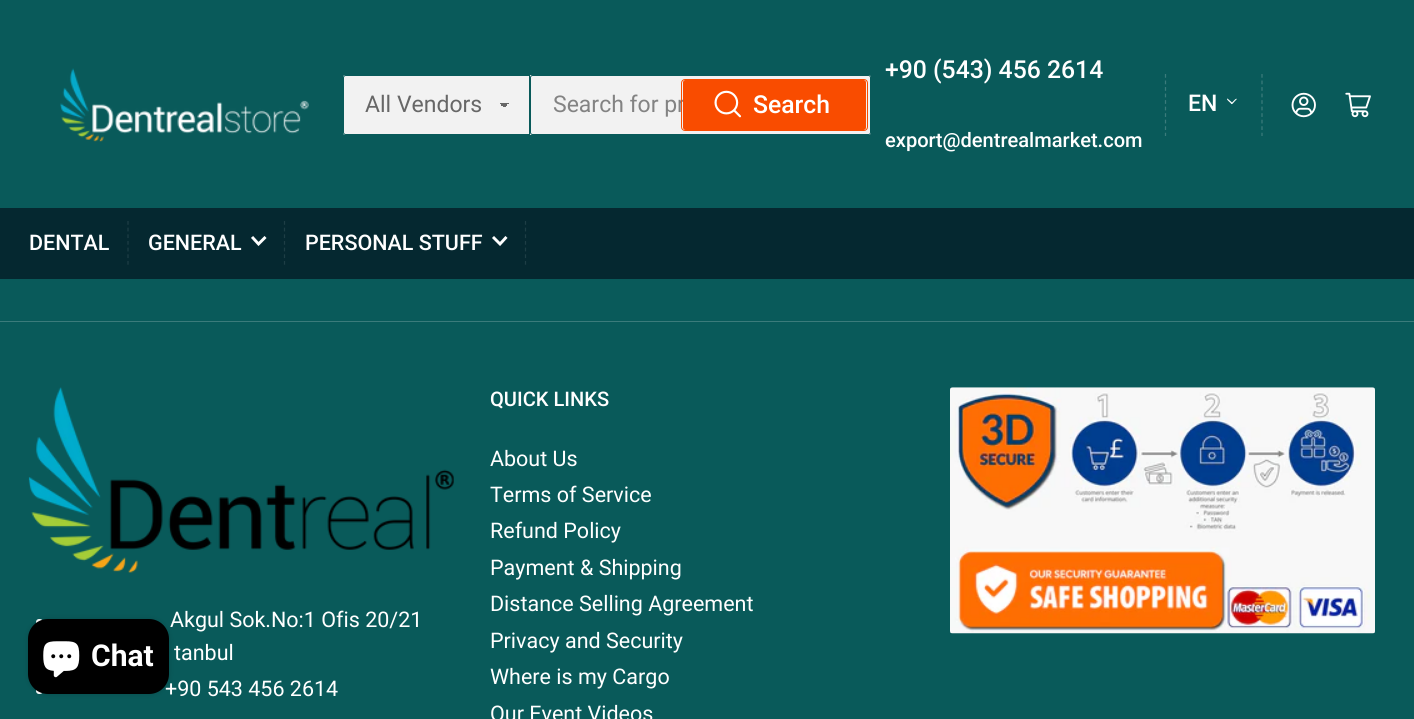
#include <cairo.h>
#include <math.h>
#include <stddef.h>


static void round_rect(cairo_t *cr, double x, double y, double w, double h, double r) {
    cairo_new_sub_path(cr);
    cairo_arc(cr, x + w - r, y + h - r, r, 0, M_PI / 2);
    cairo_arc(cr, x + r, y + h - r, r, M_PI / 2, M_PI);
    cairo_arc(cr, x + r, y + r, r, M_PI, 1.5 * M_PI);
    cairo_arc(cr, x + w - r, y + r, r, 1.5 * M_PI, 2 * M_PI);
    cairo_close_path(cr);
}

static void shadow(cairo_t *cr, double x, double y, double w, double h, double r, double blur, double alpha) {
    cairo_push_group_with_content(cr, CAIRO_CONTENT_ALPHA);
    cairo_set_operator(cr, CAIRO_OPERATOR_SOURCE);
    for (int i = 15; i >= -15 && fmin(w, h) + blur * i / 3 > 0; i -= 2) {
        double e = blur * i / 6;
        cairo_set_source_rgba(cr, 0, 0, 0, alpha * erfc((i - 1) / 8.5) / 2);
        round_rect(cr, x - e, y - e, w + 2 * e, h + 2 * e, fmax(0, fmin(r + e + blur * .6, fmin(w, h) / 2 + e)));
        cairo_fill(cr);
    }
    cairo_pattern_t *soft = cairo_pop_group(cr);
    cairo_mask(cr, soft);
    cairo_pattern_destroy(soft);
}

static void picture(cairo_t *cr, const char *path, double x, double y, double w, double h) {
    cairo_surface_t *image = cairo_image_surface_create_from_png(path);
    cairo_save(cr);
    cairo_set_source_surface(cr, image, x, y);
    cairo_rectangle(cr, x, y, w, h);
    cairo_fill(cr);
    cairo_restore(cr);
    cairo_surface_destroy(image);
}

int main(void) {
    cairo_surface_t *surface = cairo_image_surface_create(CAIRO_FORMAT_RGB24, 1414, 719);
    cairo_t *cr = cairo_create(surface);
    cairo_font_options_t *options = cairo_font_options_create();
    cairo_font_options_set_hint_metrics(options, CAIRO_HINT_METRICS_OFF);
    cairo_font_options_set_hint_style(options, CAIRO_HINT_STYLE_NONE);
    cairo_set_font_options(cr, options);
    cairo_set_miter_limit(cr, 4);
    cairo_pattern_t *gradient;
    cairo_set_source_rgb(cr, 0.039, 0.353, 0.353);
    cairo_paint(cr);
    picture(cr, "img1.png", 60, 68, 249, 74);
    cairo_set_source_rgb(cr, 0.949, 0.949, 0.949);
    round_rect(cr, 343, 75, 528, 60, 2.5);
    cairo_fill(cr);
    round_rect(cr, 343.5, 75.5, 186, 59, 2);
    cairo_set_source_rgb(cr, 0.039, 0.353, 0.353);
    cairo_set_line_width(cr, 1);
    cairo_stroke(cr);
    cairo_set_source_rgb(cr, 0.949, 0.949, 0.949);
    cairo_new_path(cr);
    cairo_move_to(cr, 345.5, 75);
    cairo_line_to(cr, 530, 75);
    cairo_line_to(cr, 530, 135);
    cairo_line_to(cr, 345.5, 135);
    cairo_curve_to(cr, 344, 135, 343, 134, 343, 132.5);
    cairo_line_to(cr, 343, 77.5);
    cairo_curve_to(cr, 343, 76, 344, 75, 345.5, 75);
    cairo_close_path(cr);
    cairo_fill(cr);
    gradient = cairo_pattern_create_linear(504, 102, 510, 108);
    cairo_pattern_add_color_stop_rgba(gradient, 0.5, 0.404, 0.404, 0.404, 1);
    cairo_pattern_add_color_stop_rgba(gradient, 0.5, 0.949, 0.949, 0.949, 1);
    cairo_set_source(cr, gradient);
    cairo_pattern_destroy(gradient);
    cairo_rectangle(cr, 504, 103, 6, 4);
    cairo_fill(cr);
    gradient = cairo_pattern_create_linear(498, 108, 504, 102);
    cairo_pattern_add_color_stop_rgba(gradient, 0.5, 0.949, 0.949, 0.949, 1);
    cairo_pattern_add_color_stop_rgba(gradient, 0.5, 0.404, 0.404, 0.404, 1);
    cairo_set_source(cr, gradient);
    cairo_pattern_destroy(gradient);
    cairo_rectangle(cr, 498, 103, 6, 4);
    cairo_fill(cr);
    cairo_new_path(cr);
    cairo_move_to(cr, 345.5, 75.5);
    cairo_line_to(cr, 529.5, 75.5);
    cairo_line_to(cr, 529.5, 134.5);
    cairo_line_to(cr, 345.5, 134.5);
    cairo_curve_to(cr, 344.5, 134.5, 343.5, 133.5, 343.5, 132.5);
    cairo_line_to(cr, 343.5, 77.5);
    cairo_curve_to(cr, 343.5, 76.5, 344.5, 75.5, 345.5, 75.5);
    cairo_close_path(cr);
    cairo_set_source_rgb(cr, 0.039, 0.353, 0.353);
    cairo_stroke(cr);
    cairo_select_font_face(cr, "Roboto", CAIRO_FONT_SLANT_NORMAL, CAIRO_FONT_WEIGHT_NORMAL);
    cairo_set_font_size(cr, 23);
    cairo_set_source_rgb(cr, 0.404, 0.404, 0.404);
    cairo_move_to(cr, 365, 112);
    cairo_show_text(cr, "All Vendors");
    cairo_set_source_rgb(cr, 0.949, 0.949, 0.949);
    round_rect(cr, 530.5, 75.5, 340, 59, 2);
    cairo_fill_preserve(cr);
    cairo_set_source_rgb(cr, 0.039, 0.353, 0.353);
    cairo_stroke(cr);
    cairo_set_source_rgb(cr, 0.514, 0.514, 0.514);
    cairo_move_to(cr, 553, 112);
    cairo_show_text(cr, "Search for pr");
    round_rect(cr, 681.5, 79.5, 186, 51, 3.5);
    cairo_set_source_rgb(cr, 0.976, 0.298, 0);
    cairo_stroke(cr);
    round_rect(cr, 683, 80, 183, 50, 2.5);
    cairo_fill(cr);
    picture(cr, "img2.png", 714, 90, 28, 28);
    cairo_select_font_face(cr, "Roboto Medium", CAIRO_FONT_SLANT_NORMAL, CAIRO_FONT_WEIGHT_NORMAL);
    cairo_set_font_size(cr, 24.75);
    cairo_set_source_rgb(cr, 1, 1, 1);
    cairo_move_to(cr, 753, 113);
    cairo_show_text(cr, "Search");
    cairo_move_to(cr, 885, 78);
    cairo_show_text(cr, "+90 (543) 456 2614");
    cairo_set_font_size(cr, 20.1);
    cairo_move_to(cr, 885, 147);
    cairo_show_text(cr, "export@dentrealmarket.com");
    cairo_new_path(cr);
    cairo_move_to(cr, 1262, 74);
    cairo_line_to(cr, 1262, 136);
    cairo_set_source_rgb(cr, 0.231, 0.482, 0.482);
    cairo_set_line_width(cr, 1.2);
    cairo_set_dash(cr, (double[]){3.75, 2.78}, 2, 0);
    cairo_stroke(cr);
    cairo_new_path(cr);
    cairo_move_to(cr, 1165.5, 74);
    cairo_line_to(cr, 1165.5, 136);
    cairo_stroke(cr);
    cairo_set_font_size(cr, 23);
    cairo_set_source_rgb(cr, 1, 1, 1);
    cairo_move_to(cr, 1188, 111);
    cairo_show_text(cr, "EN");
    cairo_new_path(cr);
    cairo_move_to(cr, 1228, 99);
    cairo_line_to(cr, 1231.5, 102);
    cairo_curve_to(cr, 1232.5, 103, 1232.5, 104.5, 1231.5, 104);
    cairo_line_to(cr, 1230, 102.5);
    cairo_curve_to(cr, 1229.5, 102, 1227, 100, 1227, 99);
    cairo_curve_to(cr, 1227, 98.5, 1228, 98.5, 1228, 99);
    cairo_close_path(cr);
    cairo_fill(cr);
    cairo_new_path(cr);
    cairo_move_to(cr, 1231.5, 103);
    cairo_line_to(cr, 1235, 99.5);
    cairo_curve_to(cr, 1236, 98.5, 1237.5, 98.5, 1236.5, 99.5);
    cairo_line_to(cr, 1235, 101);
    cairo_curve_to(cr, 1234.5, 101.5, 1232.5, 104, 1232, 104);
    cairo_curve_to(cr, 1231.5, 104, 1231, 103.5, 1231.5, 103);
    cairo_close_path(cr);
    cairo_fill(cr);
    picture(cr, "img3.png", 1291, 92, 25, 26);
    picture(cr, "img4.png", 1345, 92, 26, 26);
    cairo_set_source_rgb(cr, 0.02, 0.157, 0.188);
    cairo_rectangle(cr, 0, 208, 1414, 71);
    cairo_fill(cr);
    cairo_set_font_size(cr, 21.5);
    cairo_set_source_rgb(cr, 1, 1, 1);
    cairo_move_to(cr, 29, 250);
    cairo_show_text(cr, "DENTAL");
    cairo_new_path(cr);
    cairo_move_to(cr, 128, 221);
    cairo_line_to(cr, 128, 265);
    cairo_set_source_rgb(cr, 0.118, 0.243, 0.271);
    cairo_set_dash(cr, (double[]){3.75, 2.91}, 2, 0);
    cairo_stroke(cr);
    cairo_set_source_rgb(cr, 1, 1, 1);
    cairo_move_to(cr, 148, 250);
    cairo_show_text(cr, "GENERAL");
    cairo_new_path(cr);
    cairo_move_to(cr, 264.5, 238);
    cairo_line_to(cr, 258.5, 244);
    cairo_line_to(cr, 253, 238);
    cairo_set_line_width(cr, 2.9);
    cairo_set_line_cap(cr, CAIRO_LINE_CAP_SQUARE);
    cairo_set_dash(cr, NULL, 0, 0);
    cairo_stroke(cr);
    cairo_new_path(cr);
    cairo_move_to(cr, 284.5, 221);
    cairo_line_to(cr, 284.5, 265);
    cairo_set_source_rgb(cr, 0.118, 0.243, 0.271);
    cairo_set_line_width(cr, 1.2);
    cairo_set_line_cap(cr, CAIRO_LINE_CAP_BUTT);
    cairo_set_dash(cr, (double[]){3.75, 2.91}, 2, 0);
    cairo_stroke(cr);
    cairo_set_source_rgb(cr, 1, 1, 1);
    cairo_move_to(cr, 305, 250);
    cairo_show_text(cr, "PERSONAL STUFF");
    cairo_new_path(cr);
    cairo_move_to(cr, 505.5, 238);
    cairo_line_to(cr, 500, 244);
    cairo_line_to(cr, 494, 238);
    cairo_set_line_width(cr, 2.9);
    cairo_set_line_cap(cr, CAIRO_LINE_CAP_SQUARE);
    cairo_set_dash(cr, NULL, 0, 0);
    cairo_stroke(cr);
    cairo_new_path(cr);
    cairo_move_to(cr, 525.5, 221);
    cairo_line_to(cr, 525.5, 265);
    cairo_set_source_rgb(cr, 0.118, 0.243, 0.271);
    cairo_set_line_width(cr, 1.2);
    cairo_set_line_cap(cr, CAIRO_LINE_CAP_BUTT);
    cairo_set_dash(cr, (double[]){3.75, 2.91}, 2, 0);
    cairo_stroke(cr);
    cairo_set_source_rgb(cr, 1, 1, 1);
    round_rect(cr, 36, 619, 7, 6, 3);
    cairo_fill(cr);
    round_rect(cr, 36, 688, 7, 6, 3);
    cairo_fill(cr);
    cairo_set_source_rgb(cr, 0, 0, 0);
    shadow(cr, 28, 619, 141, 75, 20, 3, 0.15);
    cairo_select_font_face(cr, "Roboto", CAIRO_FONT_SLANT_NORMAL, CAIRO_FONT_WEIGHT_NORMAL);
    cairo_set_source_rgb(cr, 1, 1, 1);
    cairo_move_to(cr, 165, 696);
    cairo_show_text(cr, "+90 543 456 2614");
    cairo_set_source_rgb(cr, 0, 0, 0);
    round_rect(cr, 28, 619, 141, 75, 20);
    cairo_fill(cr);
    picture(cr, "img5.png", 43, 641, 37, 37);
    cairo_select_font_face(cr, "Roboto", CAIRO_FONT_SLANT_NORMAL, CAIRO_FONT_WEIGHT_BOLD);
    cairo_set_font_size(cr, 30);
    cairo_set_source_rgb(cr, 1, 1, 1);
    cairo_move_to(cr, 91, 666);
    cairo_show_text(cr, "Chat");
    cairo_set_source_rgb(cr, 0.231, 0.482, 0.482);
    cairo_rectangle(cr, 0, 321, 1414, 1);
    cairo_fill(cr);
    picture(cr, "img6.png", 28, 387, 426, 186);
    cairo_select_font_face(cr, "Roboto", CAIRO_FONT_SLANT_NORMAL, CAIRO_FONT_WEIGHT_NORMAL);
    cairo_set_font_size(cr, 21.5);
    cairo_set_source_rgb(cr, 1, 1, 1);
    cairo_move_to(cr, 170, 627);
    cairo_show_text(cr, "Akgul Sok.No:1 Ofis 20/21");
    cairo_move_to(cr, 174, 660);
    cairo_show_text(cr, "tanbul");
    cairo_select_font_face(cr, "Roboto Medium", CAIRO_FONT_SLANT_NORMAL, CAIRO_FONT_WEIGHT_NORMAL);
    cairo_set_font_size(cr, 20.1);
    cairo_move_to(cr, 490, 406);
    cairo_show_text(cr, "QUICK LINKS");
    cairo_select_font_face(cr, "Roboto", CAIRO_FONT_SLANT_NORMAL, CAIRO_FONT_WEIGHT_NORMAL);
    cairo_set_font_size(cr, 21.5);
    cairo_move_to(cr, 490, 466);
    cairo_show_text(cr, "About Us");
    cairo_move_to(cr, 490, 502);
    cairo_show_text(cr, "Terms of Service");
    cairo_move_to(cr, 490, 538);
    cairo_show_text(cr, "Refund Policy");
    cairo_move_to(cr, 490, 575);
    cairo_show_text(cr, "Payment & Shipping");
    cairo_move_to(cr, 490, 611);
    cairo_show_text(cr, "Distance Selling Agreement");
    cairo_move_to(cr, 490, 648);
    cairo_show_text(cr, "Privacy and Security");
    cairo_move_to(cr, 490, 684);
    cairo_show_text(cr, "Where is my Cargo");
    cairo_move_to(cr, 490, 721);
    cairo_show_text(cr, "Our Event Videos");
    picture(cr, "img7.png", 950, 387, 425, 247);
    cairo_surface_write_to_png(surface, "page.png");
    cairo_font_options_destroy(options);
    cairo_destroy(cr);
    cairo_surface_destroy(surface);
    return 0;
}
